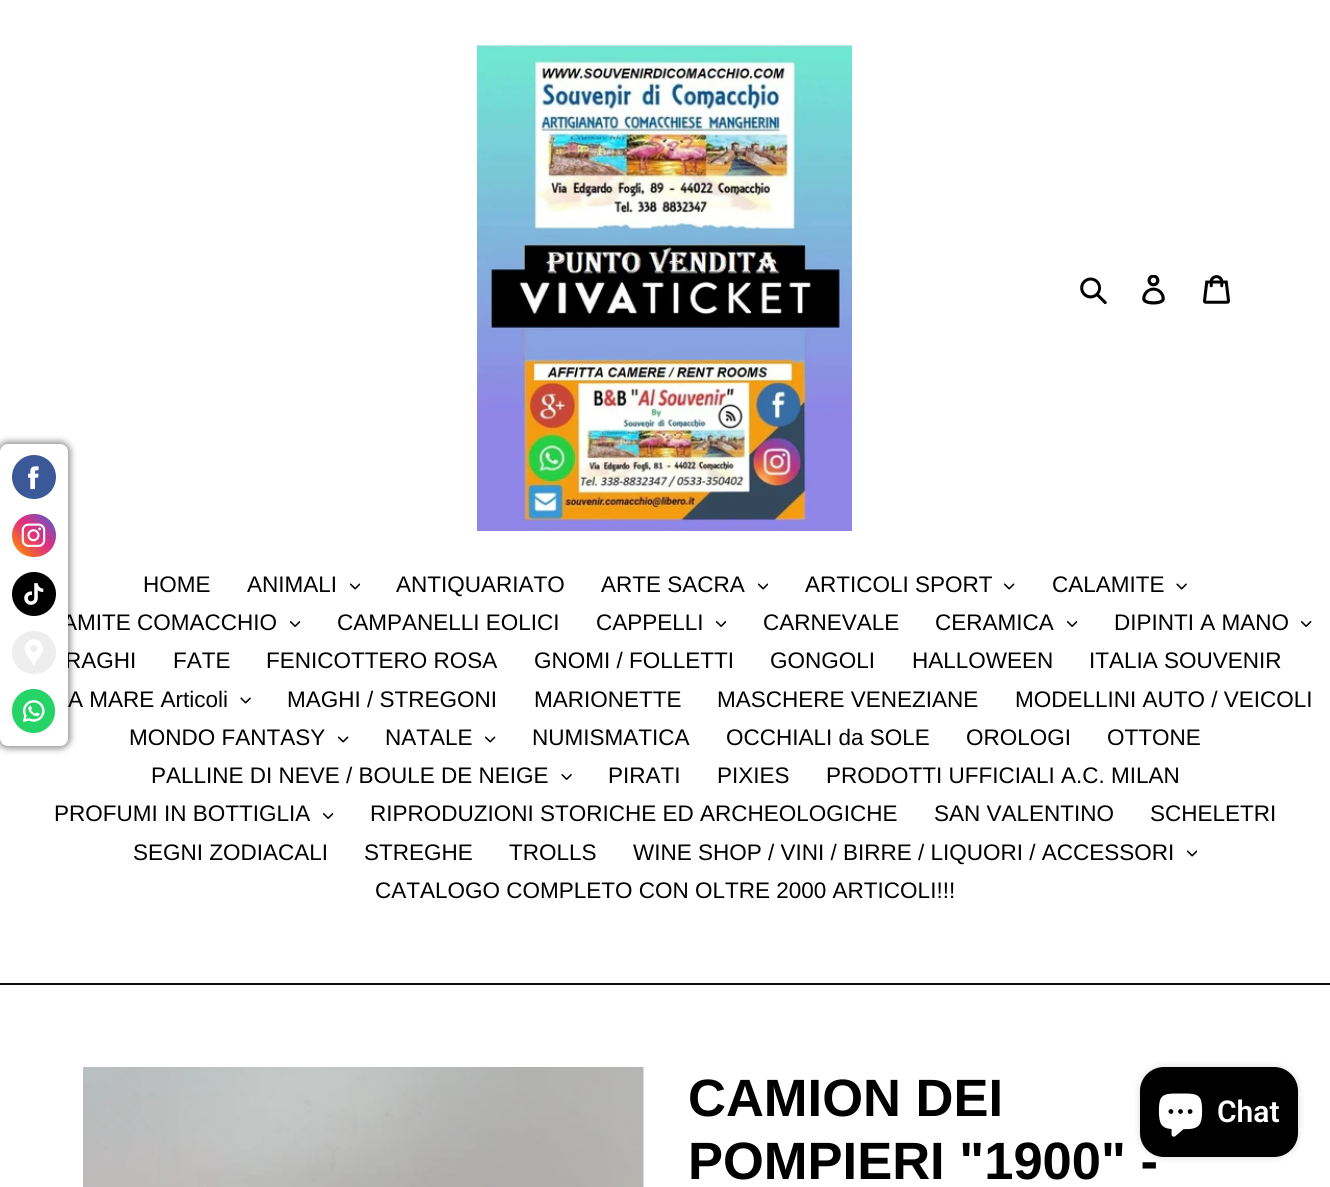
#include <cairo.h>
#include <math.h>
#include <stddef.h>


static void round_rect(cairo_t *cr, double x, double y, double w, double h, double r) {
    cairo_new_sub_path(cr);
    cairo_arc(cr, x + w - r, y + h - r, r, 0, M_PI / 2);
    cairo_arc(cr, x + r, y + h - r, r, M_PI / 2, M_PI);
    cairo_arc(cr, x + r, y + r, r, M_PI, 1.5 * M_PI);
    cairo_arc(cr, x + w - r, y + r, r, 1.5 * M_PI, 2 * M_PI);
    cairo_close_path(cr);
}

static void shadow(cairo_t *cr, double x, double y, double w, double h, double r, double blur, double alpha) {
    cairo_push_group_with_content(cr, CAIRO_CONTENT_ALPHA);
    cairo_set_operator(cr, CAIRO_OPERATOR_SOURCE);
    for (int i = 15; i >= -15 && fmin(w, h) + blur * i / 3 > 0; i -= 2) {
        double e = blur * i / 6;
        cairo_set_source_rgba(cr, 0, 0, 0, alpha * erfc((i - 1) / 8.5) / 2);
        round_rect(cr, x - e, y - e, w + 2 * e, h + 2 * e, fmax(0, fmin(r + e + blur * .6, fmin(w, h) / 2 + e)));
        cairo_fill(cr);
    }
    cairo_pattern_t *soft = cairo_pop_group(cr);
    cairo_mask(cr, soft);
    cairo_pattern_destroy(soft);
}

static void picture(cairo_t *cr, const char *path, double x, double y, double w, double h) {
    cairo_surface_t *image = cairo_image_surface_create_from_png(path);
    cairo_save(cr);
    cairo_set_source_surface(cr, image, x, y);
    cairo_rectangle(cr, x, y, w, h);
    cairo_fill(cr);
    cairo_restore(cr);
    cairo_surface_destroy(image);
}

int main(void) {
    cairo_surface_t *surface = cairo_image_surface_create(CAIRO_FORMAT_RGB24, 1330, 1187);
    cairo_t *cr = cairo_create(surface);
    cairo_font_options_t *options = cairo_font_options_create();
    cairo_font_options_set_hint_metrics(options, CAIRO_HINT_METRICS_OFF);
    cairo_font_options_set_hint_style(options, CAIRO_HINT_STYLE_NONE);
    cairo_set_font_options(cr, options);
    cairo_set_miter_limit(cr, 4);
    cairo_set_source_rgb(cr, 1, 1, 1);
    cairo_paint(cr);
    cairo_set_source_rgb(cr, 0.62, 0.62, 0.62);
    shadow(cr, -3, 441, 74, 308, 11, 3, 1);
    cairo_select_font_face(cr, "Liberation Sans", CAIRO_FONT_SLANT_NORMAL, CAIRO_FONT_WEIGHT_NORMAL);
    cairo_set_font_size(cr, 22.5);
    cairo_set_source_rgb(cr, 0, 0, 0);
    cairo_move_to(cr, 62, 630);
    cairo_show_text(cr, "AMITE COMACCHIO");
    cairo_move_to(cr, 65, 668);
    cairo_show_text(cr, "RAGHI");
    cairo_move_to(cr, 68, 707);
    cairo_show_text(cr, "A MARE Articoli");
    cairo_set_source_rgb(cr, 1, 1, 1);
    round_rect(cr, 0, 444, 68, 302, 8);
    cairo_fill(cr);
    picture(cr, "img1.png", 12, 455, 44, 44);
    picture(cr, "img2.png", 12, 514, 44, 43);
    picture(cr, "img3.png", 12, 572, 44, 44);
    picture(cr, "img4.png", 12, 631, 44, 43);
    picture(cr, "img5.png", 12, 689, 43, 44);
    picture(cr, "img6.png", 477, 45, 375, 486);
    picture(cr, "img7.png", 1080, 277, 27, 28);
    picture(cr, "img8.png", 1142, 275, 23, 30);
    picture(cr, "img9.png", 1203, 275, 27, 29);
    cairo_set_source_rgb(cr, 0.063, 0.047, 0.047);
    cairo_rectangle(cr, 0, 983, 1330, 2);
    cairo_fill(cr);
    cairo_set_source_rgb(cr, 0, 0, 0);
    cairo_move_to(cr, 143, 592);
    cairo_show_text(cr, "HOME");
    cairo_move_to(cr, 247, 592);
    cairo_show_text(cr, "ANIMALI");
    picture(cr, "img10.png", 350, 583, 10, 7);
    cairo_move_to(cr, 396, 592);
    cairo_show_text(cr, "ANTIQUARIATO");
    cairo_move_to(cr, 601, 592);
    cairo_show_text(cr, "ARTE SACRA");
    picture(cr, "img10.png", 758, 583, 10, 7);
    cairo_move_to(cr, 805, 592);
    cairo_show_text(cr, "ARTICOLI SPORT");
    picture(cr, "img11.png", 1004, 583, 11, 7);
    cairo_move_to(cr, 1052, 592);
    cairo_show_text(cr, "CALAMITE");
    picture(cr, "img12.png", 1176, 583, 11, 7);
    picture(cr, "img13.png", 290, 621, 10, 6);
    cairo_move_to(cr, 337, 630);
    cairo_show_text(cr, "CAMPANELLI EOLICI");
    cairo_move_to(cr, 596, 630);
    cairo_show_text(cr, "CAPPELLI");
    picture(cr, "img13.png", 716, 621, 10, 6);
    cairo_move_to(cr, 763, 630);
    cairo_show_text(cr, "CARNEVALE");
    cairo_move_to(cr, 935, 630);
    cairo_show_text(cr, "CERAMICA");
    picture(cr, "img13.png", 1067, 621, 10, 6);
    cairo_move_to(cr, 1114, 630);
    cairo_show_text(cr, "DIPINTI A MANO");
    picture(cr, "img14.png", 1301, 621, 11, 6);
    cairo_move_to(cr, 173, 668);
    cairo_show_text(cr, "FATE");
    cairo_move_to(cr, 266, 668);
    cairo_show_text(cr, "FENICOTTERO ROSA");
    cairo_move_to(cr, 534, 668);
    cairo_show_text(cr, "GNOMI / FOLLETTI");
    cairo_move_to(cr, 770, 668);
    cairo_show_text(cr, "GONGOLI");
    cairo_move_to(cr, 912, 668);
    cairo_show_text(cr, "HALLOWEEN");
    cairo_move_to(cr, 1089, 668);
    cairo_show_text(cr, "ITALIA SOUVENIR");
    picture(cr, "img12.png", 240, 697, 11, 7);
    cairo_move_to(cr, 287, 707);
    cairo_show_text(cr, "MAGHI / STREGONI");
    cairo_move_to(cr, 534, 707);
    cairo_show_text(cr, "MARIONETTE");
    cairo_move_to(cr, 717, 707);
    cairo_show_text(cr, "MASCHERE VENEZIANE");
    cairo_move_to(cr, 1015, 707);
    cairo_show_text(cr, "MODELLINI AUTO / VEICOLI");
    cairo_move_to(cr, 129, 745);
    cairo_show_text(cr, "MONDO FANTASY");
    picture(cr, "img11.png", 338, 736, 11, 7);
    cairo_move_to(cr, 385, 745);
    cairo_show_text(cr, "NATALE");
    picture(cr, "img11.png", 485, 736, 11, 7);
    cairo_move_to(cr, 532, 745);
    cairo_show_text(cr, "NUMISMATICA");
    cairo_move_to(cr, 726, 745);
    cairo_show_text(cr, "OCCHIALI da SOLE");
    cairo_move_to(cr, 966, 745);
    cairo_show_text(cr, "OROLOGI");
    cairo_move_to(cr, 1107, 745);
    cairo_show_text(cr, "OTTONE");
    cairo_move_to(cr, 151, 783);
    cairo_show_text(cr, "PALLINE DI NEVE / BOULE DE NEIGE");
    picture(cr, "img15.png", 561, 774, 11, 6);
    cairo_move_to(cr, 608, 783);
    cairo_show_text(cr, "PIRATI");
    cairo_move_to(cr, 717, 783);
    cairo_show_text(cr, "PIXIES");
    cairo_move_to(cr, 826, 783);
    cairo_show_text(cr, "PRODOTTI UFFICIALI A.C. MILAN");
    cairo_move_to(cr, 54, 821);
    cairo_show_text(cr, "PROFUMI IN BOTTIGLIA");
    picture(cr, "img13.png", 323, 813, 10, 6);
    cairo_move_to(cr, 370, 821);
    cairo_show_text(cr, "RIPRODUZIONI STORICHE ED ARCHEOLOGICHE");
    cairo_move_to(cr, 934, 821);
    cairo_show_text(cr, "SAN VALENTINO");
    cairo_move_to(cr, 1150, 821);
    cairo_show_text(cr, "SCHELETRI");
    cairo_move_to(cr, 133, 860);
    cairo_show_text(cr, "SEGNI ZODIACALI");
    cairo_move_to(cr, 364, 860);
    cairo_show_text(cr, "STREGHE");
    cairo_move_to(cr, 509, 860);
    cairo_show_text(cr, "TROLLS");
    cairo_move_to(cr, 633, 860);
    cairo_show_text(cr, "WINE SHOP / VINI / BIRRE / LIQUORI / ACCESSORI");
    picture(cr, "img10.png", 1187, 850, 10, 7);
    cairo_move_to(cr, 375, 898);
    cairo_show_text(cr, "CATALOGO COMPLETO CON OLTRE 2000 ARTICOLI!!!");
    picture(cr, "img16.png", 83, 1067, 561, 120);
    cairo_select_font_face(cr, "Liberation Sans", CAIRO_FONT_SLANT_NORMAL, CAIRO_FONT_WEIGHT_BOLD);
    cairo_set_font_size(cr, 52.5);
    cairo_move_to(cr, 688, 1116);
    cairo_show_text(cr, "CAMION DEI");
    cairo_move_to(cr, 688, 1179);
    cairo_show_text(cr, "POMPIERI \"1900\" -");
    cairo_set_source_rgb(cr, 0, 0, 0);
    shadow(cr, 1140, 1067, 158, 90, 24, 4, 0.15);
    cairo_set_source_rgb(cr, 0, 0, 0);
    round_rect(cr, 1140, 1067, 158, 90, 24);
    cairo_fill(cr);
    picture(cr, "img17.png", 1158, 1093, 45, 44);
    cairo_select_font_face(cr, "Roboto SemiBold", CAIRO_FONT_SLANT_NORMAL, CAIRO_FONT_WEIGHT_NORMAL);
    cairo_set_font_size(cr, 30);
    cairo_set_source_rgb(cr, 1, 1, 1);
    cairo_move_to(cr, 1217, 1122);
    cairo_show_text(cr, "Chat");
    cairo_surface_write_to_png(surface, "page.png");
    cairo_font_options_destroy(options);
    cairo_destroy(cr);
    cairo_surface_destroy(surface);
    return 0;
}
